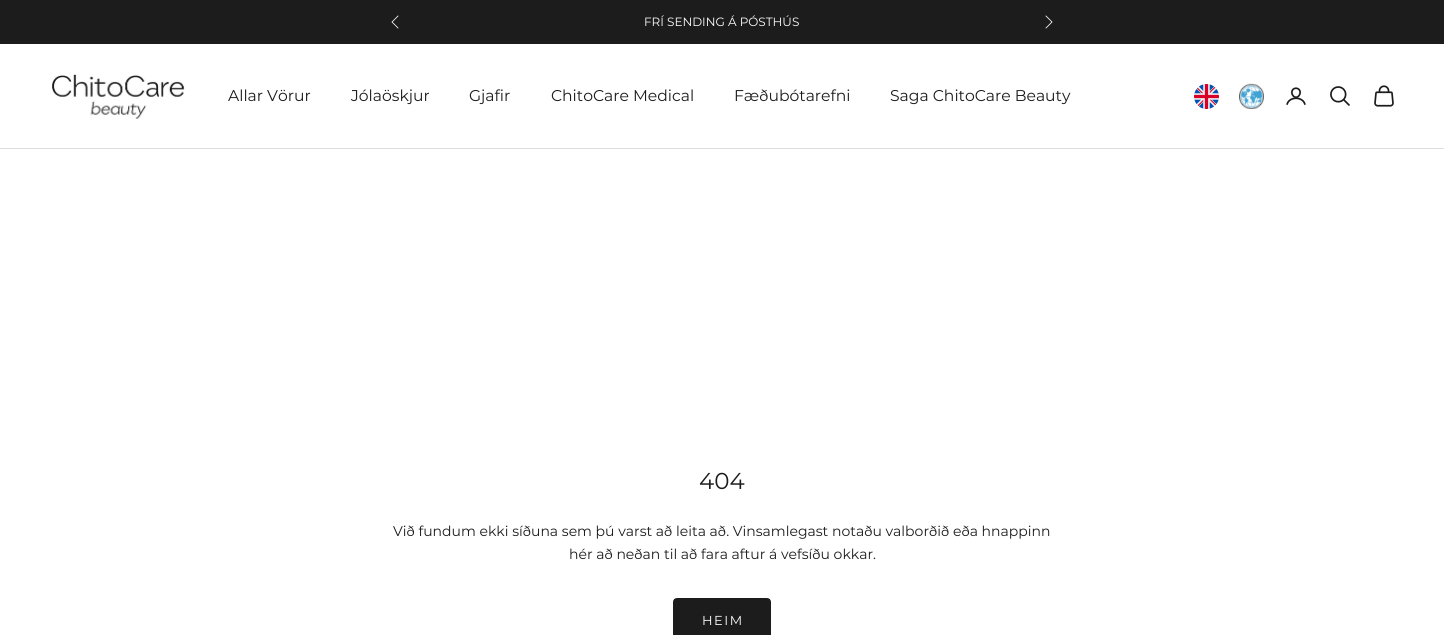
#include <cairo.h>
#include <math.h>
#include <stddef.h>


static void spaced_text(cairo_t *cr, double x, double y, const char *s, double letter, double word) {
    cairo_move_to(cr, x, y);
    while (*s) {
        char ch[5] = {0};
        int n = 0;
        do ch[n++] = *s++; while ((*s & 0xC0) == 0x80);
        cairo_show_text(cr, ch);
        cairo_rel_move_to(cr, letter + word * (*ch == ' '), 0);
    }
}

static void round_rect(cairo_t *cr, double x, double y, double w, double h, double r) {
    cairo_new_sub_path(cr);
    cairo_arc(cr, x + w - r, y + h - r, r, 0, M_PI / 2);
    cairo_arc(cr, x + r, y + h - r, r, M_PI / 2, M_PI);
    cairo_arc(cr, x + r, y + r, r, M_PI, 1.5 * M_PI);
    cairo_arc(cr, x + w - r, y + r, r, 1.5 * M_PI, 2 * M_PI);
    cairo_close_path(cr);
}

static void picture(cairo_t *cr, const char *path, double x, double y, double w, double h) {
    cairo_surface_t *image = cairo_image_surface_create_from_png(path);
    cairo_save(cr);
    cairo_set_source_surface(cr, image, x, y);
    cairo_rectangle(cr, x, y, w, h);
    cairo_fill(cr);
    cairo_restore(cr);
    cairo_surface_destroy(image);
}

int main(void) {
    cairo_surface_t *surface = cairo_image_surface_create(CAIRO_FORMAT_RGB24, 1444, 635);
    cairo_t *cr = cairo_create(surface);
    cairo_font_options_t *options = cairo_font_options_create();
    cairo_font_options_set_hint_metrics(options, CAIRO_HINT_METRICS_OFF);
    cairo_font_options_set_hint_style(options, CAIRO_HINT_STYLE_NONE);
    cairo_set_font_options(cr, options);
    cairo_set_miter_limit(cr, 4);
    cairo_set_source_rgb(cr, 1, 1, 1);
    cairo_paint(cr);
    cairo_set_source_rgb(cr, 0.11, 0.11, 0.11);
    cairo_rectangle(cr, 0, 0, 1444, 44);
    cairo_fill(cr);
    cairo_new_path(cr);
    cairo_move_to(cr, 398, 16);
    cairo_line_to(cr, 392, 22);
    cairo_line_to(cr, 398, 28);
    cairo_set_source_rgb(cr, 1, 1, 1);
    cairo_set_line_width(cr, 0.8);
    cairo_set_line_cap(cr, CAIRO_LINE_CAP_SQUARE);
    cairo_stroke(cr);
    cairo_select_font_face(cr, "Montserrat", CAIRO_FONT_SLANT_NORMAL, CAIRO_FONT_WEIGHT_NORMAL);
    cairo_set_font_size(cr, 12);
    cairo_move_to(cr, 644, 26);
    cairo_show_text(cr, "FRÍ SENDING Á PÓSTHÚS");
    cairo_new_path(cr);
    cairo_move_to(cr, 1046, 28);
    cairo_line_to(cr, 1052, 22);
    cairo_line_to(cr, 1046, 16);
    cairo_stroke(cr);
    cairo_set_source_rgb(cr, 0.867, 0.867, 0.867);
    cairo_rectangle(cr, 0, 148, 1444, 1);
    cairo_fill(cr);
    picture(cr, "img1.png", 52, 74, 133, 45);
    cairo_set_font_size(cr, 15.6);
    cairo_set_source_rgb(cr, 0.11, 0.11, 0.11);
    cairo_move_to(cr, 228, 101);
    cairo_show_text(cr, "Allar Vörur");
    cairo_move_to(cr, 351, 101);
    cairo_show_text(cr, "Jólaöskjur");
    cairo_move_to(cr, 469, 101);
    cairo_show_text(cr, "Gjafir");
    cairo_move_to(cr, 551, 101);
    cairo_show_text(cr, "ChitoCare Medical");
    cairo_move_to(cr, 734, 101);
    cairo_show_text(cr, "Fæðubótarefni");
    cairo_move_to(cr, 890, 101);
    cairo_show_text(cr, "Saga ChitoCare Beauty");
    picture(cr, "img2.png", 1194, 84, 25, 25);
    picture(cr, "img3.png", 1239, 83, 25, 26);
    picture(cr, "img4.png", 1286, 87, 20, 18);
    picture(cr, "img5.png", 1330, 86, 20, 20);
    picture(cr, "img6.png", 1374, 85, 20, 22);
    cairo_set_font_size(cr, 23);
    cairo_move_to(cr, 699, 489);
    cairo_show_text(cr, "404");
    cairo_set_font_size(cr, 14);
    cairo_move_to(cr, 393, 536);
    cairo_show_text(cr, "Við fundum ekki síðuna sem þú varst að leita að. Vinsamlegast notaðu valborðið eða hnappinn");
    cairo_move_to(cr, 569, 559);
    cairo_show_text(cr, "hér að neðan til að fara aftur á vefsíðu okkar.");
    cairo_rectangle(cr, 674, 599, 96, 36);
    cairo_fill(cr);
    round_rect(cr, 673.5, 598.5, 97, 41, 3.5);
    cairo_set_line_width(cr, 1);
    cairo_set_line_cap(cr, CAIRO_LINE_CAP_BUTT);
    cairo_stroke(cr);
    cairo_set_font_size(cr, 13);
    cairo_set_source_rgb(cr, 1, 1, 1);
    spaced_text(cr, 702, 625, "HEIM", 1.5, 0);
    cairo_surface_write_to_png(surface, "page.png");
    cairo_font_options_destroy(options);
    cairo_destroy(cr);
    cairo_surface_destroy(surface);
    return 0;
}
